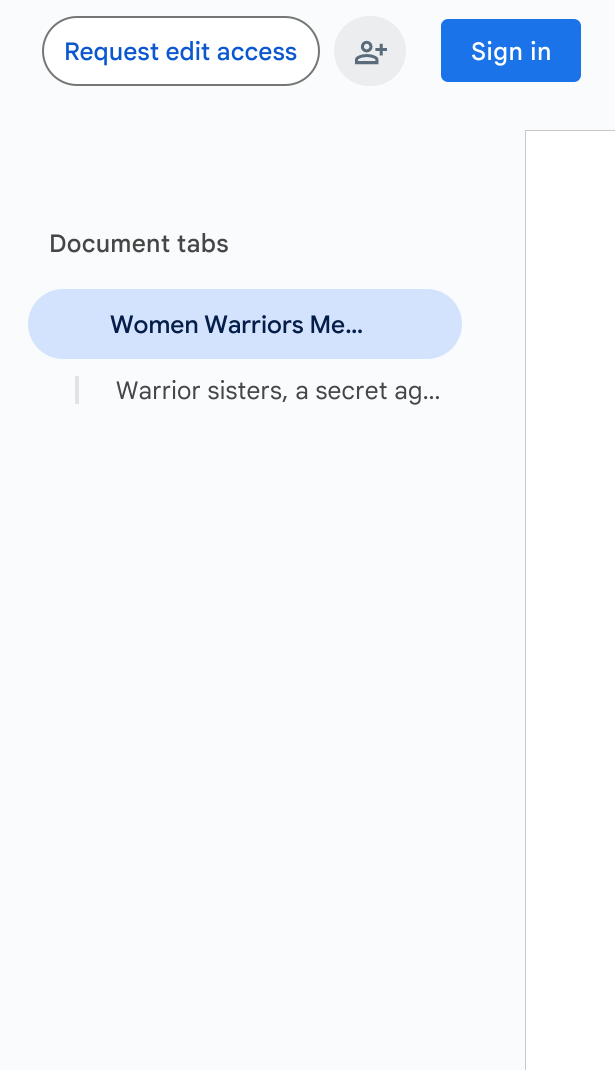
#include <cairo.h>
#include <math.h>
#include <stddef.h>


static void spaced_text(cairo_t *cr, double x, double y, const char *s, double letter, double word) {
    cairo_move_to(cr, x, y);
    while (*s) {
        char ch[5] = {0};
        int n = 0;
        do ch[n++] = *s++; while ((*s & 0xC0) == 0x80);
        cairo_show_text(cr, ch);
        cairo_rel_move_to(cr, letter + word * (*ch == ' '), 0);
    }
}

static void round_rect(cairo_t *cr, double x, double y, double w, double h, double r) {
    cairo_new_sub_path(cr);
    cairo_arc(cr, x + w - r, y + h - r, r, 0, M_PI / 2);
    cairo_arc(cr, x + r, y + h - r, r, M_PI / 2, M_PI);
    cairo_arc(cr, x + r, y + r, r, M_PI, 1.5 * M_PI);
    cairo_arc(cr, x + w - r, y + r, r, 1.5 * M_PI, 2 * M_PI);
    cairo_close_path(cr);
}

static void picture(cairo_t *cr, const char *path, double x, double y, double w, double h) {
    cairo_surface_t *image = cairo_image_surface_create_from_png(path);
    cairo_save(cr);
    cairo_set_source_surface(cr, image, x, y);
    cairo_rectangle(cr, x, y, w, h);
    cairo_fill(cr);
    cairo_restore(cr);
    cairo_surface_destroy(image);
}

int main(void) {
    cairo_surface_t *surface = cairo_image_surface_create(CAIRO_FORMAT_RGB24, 615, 1070);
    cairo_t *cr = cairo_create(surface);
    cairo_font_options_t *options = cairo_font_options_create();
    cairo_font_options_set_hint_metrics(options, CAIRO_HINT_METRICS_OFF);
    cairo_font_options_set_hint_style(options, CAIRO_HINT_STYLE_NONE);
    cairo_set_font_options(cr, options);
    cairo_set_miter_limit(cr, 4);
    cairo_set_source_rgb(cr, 0.976, 0.984, 0.992);
    cairo_paint(cr);
    cairo_set_source_rgb(cr, 1, 1, 1);
    round_rect(cr, 43, 17, 276, 68, 34);
    cairo_fill_preserve(cr);
    cairo_set_source_rgb(cr, 0.455, 0.467, 0.459);
    cairo_stroke(cr);
    cairo_select_font_face(cr, "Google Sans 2 Medium", CAIRO_FONT_SLANT_NORMAL, CAIRO_FONT_WEIGHT_NORMAL);
    cairo_set_font_size(cr, 24.5);
    cairo_set_source_rgb(cr, 0.043, 0.341, 0.816);
    cairo_move_to(cr, 64, 60);
    cairo_show_text(cr, "Request edit access");
    cairo_set_source_rgb(cr, 0.925, 0.929, 0.933);
    round_rect(cr, 334, 16, 72, 70, 35);
    cairo_fill(cr);
    picture(cr, "img1.png", 354, 40, 33, 25);
    cairo_set_source_rgb(cr, 0.102, 0.451, 0.91);
    round_rect(cr, 441, 19, 140, 63, 7);
    cairo_fill(cr);
    cairo_set_source_rgb(cr, 1, 1, 1);
    spaced_text(cr, 471, 60, "Sign in", 0.5, 0);
    cairo_set_source_rgb(cr, 0.267, 0.278, 0.275);
    spaced_text(cr, 49, 252, "Document tabs", 0.2, 0);
    cairo_set_source_rgb(cr, 0.827, 0.89, 0.992);
    round_rect(cr, 28, 289, 434, 70, 35);
    cairo_fill(cr);
    cairo_select_font_face(cr, "Google Sans Medium", CAIRO_FONT_SLANT_NORMAL, CAIRO_FONT_WEIGHT_NORMAL);
    cairo_set_source_rgb(cr, 0.016, 0.118, 0.286);
    cairo_move_to(cr, 110, 333);
    cairo_show_text(cr, "Women Warriors Me…");
    cairo_set_source_rgb(cr, 0.89, 0.89, 0.89);
    cairo_rectangle(cr, 75, 376, 4, 28);
    cairo_fill(cr);
    cairo_select_font_face(cr, "Google Sans", CAIRO_FONT_SLANT_NORMAL, CAIRO_FONT_WEIGHT_NORMAL);
    cairo_set_source_rgb(cr, 0.267, 0.278, 0.275);
    spaced_text(cr, 116, 399, "Warrior sisters, a secret ag…", 0.2, 0);
    cairo_rectangle(cr, 526, 131, 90, 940);
    cairo_set_source_rgb(cr, 0.78, 0.78, 0.78);
    cairo_stroke(cr);
    cairo_set_source_rgb(cr, 1, 1, 1);
    cairo_rectangle(cr, 526, 131, 89, 939);
    cairo_fill(cr);
    cairo_surface_write_to_png(surface, "page.png");
    cairo_font_options_destroy(options);
    cairo_destroy(cr);
    cairo_surface_destroy(surface);
    return 0;
}
